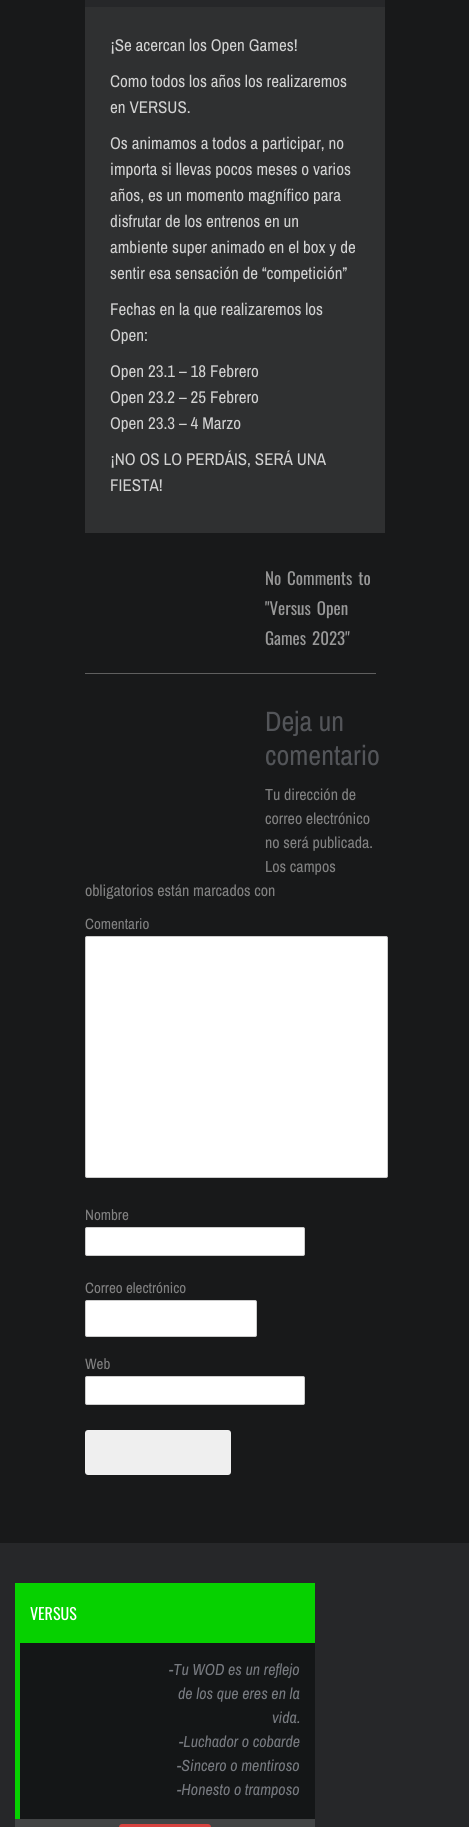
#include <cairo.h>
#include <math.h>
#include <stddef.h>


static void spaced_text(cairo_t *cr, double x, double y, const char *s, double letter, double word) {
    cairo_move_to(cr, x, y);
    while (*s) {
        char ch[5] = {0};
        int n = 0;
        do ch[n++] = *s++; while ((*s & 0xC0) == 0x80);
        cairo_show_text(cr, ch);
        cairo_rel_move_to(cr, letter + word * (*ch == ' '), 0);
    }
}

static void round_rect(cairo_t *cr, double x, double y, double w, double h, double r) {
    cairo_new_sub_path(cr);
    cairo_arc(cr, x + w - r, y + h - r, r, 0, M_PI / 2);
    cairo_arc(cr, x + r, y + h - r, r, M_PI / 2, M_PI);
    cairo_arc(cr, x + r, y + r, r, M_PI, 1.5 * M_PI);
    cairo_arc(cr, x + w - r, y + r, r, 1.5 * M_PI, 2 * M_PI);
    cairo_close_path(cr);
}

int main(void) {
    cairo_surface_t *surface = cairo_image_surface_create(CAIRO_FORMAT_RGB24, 469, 1827);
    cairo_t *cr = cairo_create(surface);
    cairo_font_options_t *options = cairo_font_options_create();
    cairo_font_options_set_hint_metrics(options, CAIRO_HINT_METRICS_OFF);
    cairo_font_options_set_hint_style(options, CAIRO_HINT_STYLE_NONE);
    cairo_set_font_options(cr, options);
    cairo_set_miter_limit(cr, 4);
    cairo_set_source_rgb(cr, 0.094, 0.098, 0.102);
    cairo_paint(cr);
    cairo_set_source_rgb(cr, 0.149, 0.153, 0.161);
    cairo_rectangle(cr, 85, 0, 300, 7);
    cairo_fill(cr);
    cairo_set_source_rgb(cr, 0.184, 0.188, 0.192);
    cairo_rectangle(cr, 85, 7, 300, 526);
    cairo_fill(cr);
    cairo_select_font_face(cr, "Archivo Narrow", CAIRO_FONT_SLANT_NORMAL, CAIRO_FONT_WEIGHT_NORMAL);
    cairo_set_font_size(cr, 17);
    cairo_set_source_rgb(cr, 0.824, 0.824, 0.824);
    cairo_move_to(cr, 110, 51);
    cairo_show_text(cr, "¡Se acercan los Open Games!");
    cairo_move_to(cr, 110, 87);
    cairo_show_text(cr, "Como todos los años los realizaremos");
    cairo_move_to(cr, 110, 113);
    cairo_show_text(cr, "en VERSUS.");
    cairo_move_to(cr, 110, 149);
    cairo_show_text(cr, "Os animamos a todos a participar, no");
    cairo_move_to(cr, 110, 175);
    cairo_show_text(cr, "importa si llevas pocos meses o varios");
    cairo_move_to(cr, 110, 201);
    cairo_show_text(cr, "años, es un momento magnífico para");
    cairo_move_to(cr, 110, 227);
    cairo_show_text(cr, "disfrutar de los entrenos en un");
    cairo_move_to(cr, 110, 253);
    cairo_show_text(cr, "ambiente super animado en el box y de");
    cairo_move_to(cr, 110, 279);
    cairo_show_text(cr, "sentir esa sensación de “competición”");
    cairo_move_to(cr, 110, 315);
    cairo_show_text(cr, "Fechas en la que realizaremos los");
    cairo_move_to(cr, 110, 341);
    cairo_show_text(cr, "Open:");
    cairo_move_to(cr, 110, 377);
    cairo_show_text(cr, "Open 23.1 – 18 Febrero");
    cairo_move_to(cr, 110, 403);
    cairo_show_text(cr, "Open 23.2 – 25 Febrero");
    cairo_move_to(cr, 110, 429);
    cairo_show_text(cr, "Open 23.3 – 4 Marzo");
    cairo_move_to(cr, 110, 465);
    cairo_show_text(cr, "¡NO OS LO PERDÁIS, SERÁ UNA");
    cairo_move_to(cr, 110, 491);
    cairo_show_text(cr, "FIESTA!");
    cairo_set_source_rgb(cr, 0.373, 0.373, 0.373);
    cairo_rectangle(cr, 85, 673, 291, 1);
    cairo_fill(cr);
    cairo_select_font_face(cr, "Oswald", CAIRO_FONT_SLANT_NORMAL, CAIRO_FONT_WEIGHT_NORMAL);
    cairo_set_source_rgb(cr, 0.6, 0.6, 0.6);
    spaced_text(cr, 265, 585, "No Comments to", 0, 2);
    spaced_text(cr, 265, 615, "\"Versus Open", 0, 2);
    spaced_text(cr, 265, 645, "Games 2023\"", 0, 2);
    cairo_select_font_face(cr, "Archivo Narrow", CAIRO_FONT_SLANT_NORMAL, CAIRO_FONT_WEIGHT_NORMAL);
    cairo_set_font_size(cr, 28);
    cairo_set_source_rgb(cr, 0.325, 0.333, 0.349);
    cairo_move_to(cr, 265, 731);
    cairo_show_text(cr, "Deja un");
    cairo_move_to(cr, 265, 765);
    cairo_show_text(cr, "comentario");
    cairo_set_font_size(cr, 16);
    cairo_set_source_rgb(cr, 0.51, 0.51, 0.51);
    cairo_move_to(cr, 265, 800);
    cairo_show_text(cr, "Tu dirección de");
    cairo_move_to(cr, 265, 824);
    cairo_show_text(cr, "correo electrónico");
    cairo_move_to(cr, 265, 848);
    cairo_show_text(cr, "no será publicada.");
    cairo_move_to(cr, 265, 872);
    cairo_show_text(cr, "Los campos");
    cairo_move_to(cr, 85, 896);
    cairo_show_text(cr, "obligatorios están marcados con");
    cairo_set_font_size(cr, 15);
    cairo_move_to(cr, 85, 929);
    cairo_show_text(cr, "Comentario");
    cairo_set_source_rgb(cr, 1, 1, 1);
    round_rect(cr, 85.5, 936.5, 302, 241, 1.5);
    cairo_fill_preserve(cr);
    cairo_set_source_rgb(cr, 0.8, 0.8, 0.8);
    cairo_set_line_width(cr, 1);
    cairo_stroke(cr);
    cairo_set_source_rgb(cr, 0.51, 0.51, 0.51);
    cairo_move_to(cr, 85, 1220);
    cairo_show_text(cr, "Nombre");
    cairo_set_source_rgb(cr, 1, 1, 1);
    round_rect(cr, 85.5, 1227.5, 219, 28, 1.5);
    cairo_fill_preserve(cr);
    cairo_set_source_rgb(cr, 0.8, 0.8, 0.8);
    cairo_stroke(cr);
    cairo_set_source_rgb(cr, 0.51, 0.51, 0.51);
    cairo_move_to(cr, 85, 1293);
    cairo_show_text(cr, "Correo electrónico");
    cairo_set_source_rgb(cr, 1, 1, 1);
    round_rect(cr, 85.5, 1300.5, 171, 36, 1.5);
    cairo_fill_preserve(cr);
    cairo_set_source_rgb(cr, 0.8, 0.8, 0.8);
    cairo_stroke(cr);
    cairo_set_source_rgb(cr, 0.51, 0.51, 0.51);
    cairo_move_to(cr, 85, 1369);
    cairo_show_text(cr, "Web");
    cairo_set_source_rgb(cr, 1, 1, 1);
    round_rect(cr, 85.5, 1376.5, 219, 28, 1.5);
    cairo_fill_preserve(cr);
    cairo_set_source_rgb(cr, 0.8, 0.8, 0.8);
    cairo_stroke(cr);
    cairo_set_source_rgb(cr, 0.937, 0.937, 0.937);
    round_rect(cr, 85, 1430, 146, 45, 3);
    cairo_fill(cr);
    cairo_set_source_rgb(cr, 0.149, 0.153, 0.161);
    cairo_rectangle(cr, 0, 1543, 469, 284);
    cairo_fill(cr);
    cairo_set_source_rgb(cr, 0.259, 0.267, 0.271);
    cairo_rectangle(cr, 15, 1819, 300, 8);
    cairo_fill(cr);
    cairo_set_source_rgb(cr, 0.024, 0.82, 0);
    cairo_rectangle(cr, 15, 1583, 300, 60);
    cairo_fill(cr);
    cairo_select_font_face(cr, "Oswald", CAIRO_FONT_SLANT_NORMAL, CAIRO_FONT_WEIGHT_NORMAL);
    cairo_set_font_size(cr, 16);
    cairo_set_source_rgb(cr, 1, 1, 1);
    cairo_move_to(cr, 30, 1620);
    cairo_show_text(cr, "VERSUS");
    cairo_set_source_rgb(cr, 0.082, 0.086, 0.09);
    cairo_rectangle(cr, 20, 1643, 295, 176);
    cairo_fill(cr);
    cairo_set_source_rgb(cr, 0.024, 0.82, 0);
    cairo_rectangle(cr, 15, 1643, 5, 176);
    cairo_fill(cr);
    cairo_select_font_face(cr, "Archivo Narrow", CAIRO_FONT_SLANT_ITALIC, CAIRO_FONT_WEIGHT_NORMAL);
    cairo_set_source_rgb(cr, 0.471, 0.482, 0.506);
    cairo_move_to(cr, 169, 1675);
    cairo_show_text(cr, "-Tu WOD es un reflejo");
    cairo_move_to(cr, 178, 1699);
    cairo_show_text(cr, "de los que eres en la");
    cairo_move_to(cr, 272, 1723);
    cairo_show_text(cr, "vida.");
    cairo_move_to(cr, 179, 1747);
    cairo_show_text(cr, "-Luchador o cobarde");
    cairo_move_to(cr, 177, 1771);
    cairo_show_text(cr, "-Sincero o mentiroso");
    cairo_move_to(cr, 177, 1795);
    cairo_show_text(cr, "-Honesto o tramposo");
    cairo_set_source_rgb(cr, 0.843, 0.263, 0.251);
    round_rect(cr, 119, 1824, 92, 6, 3);
    cairo_fill(cr);
    cairo_surface_write_to_png(surface, "page.png");
    cairo_font_options_destroy(options);
    cairo_destroy(cr);
    cairo_surface_destroy(surface);
    return 0;
}
